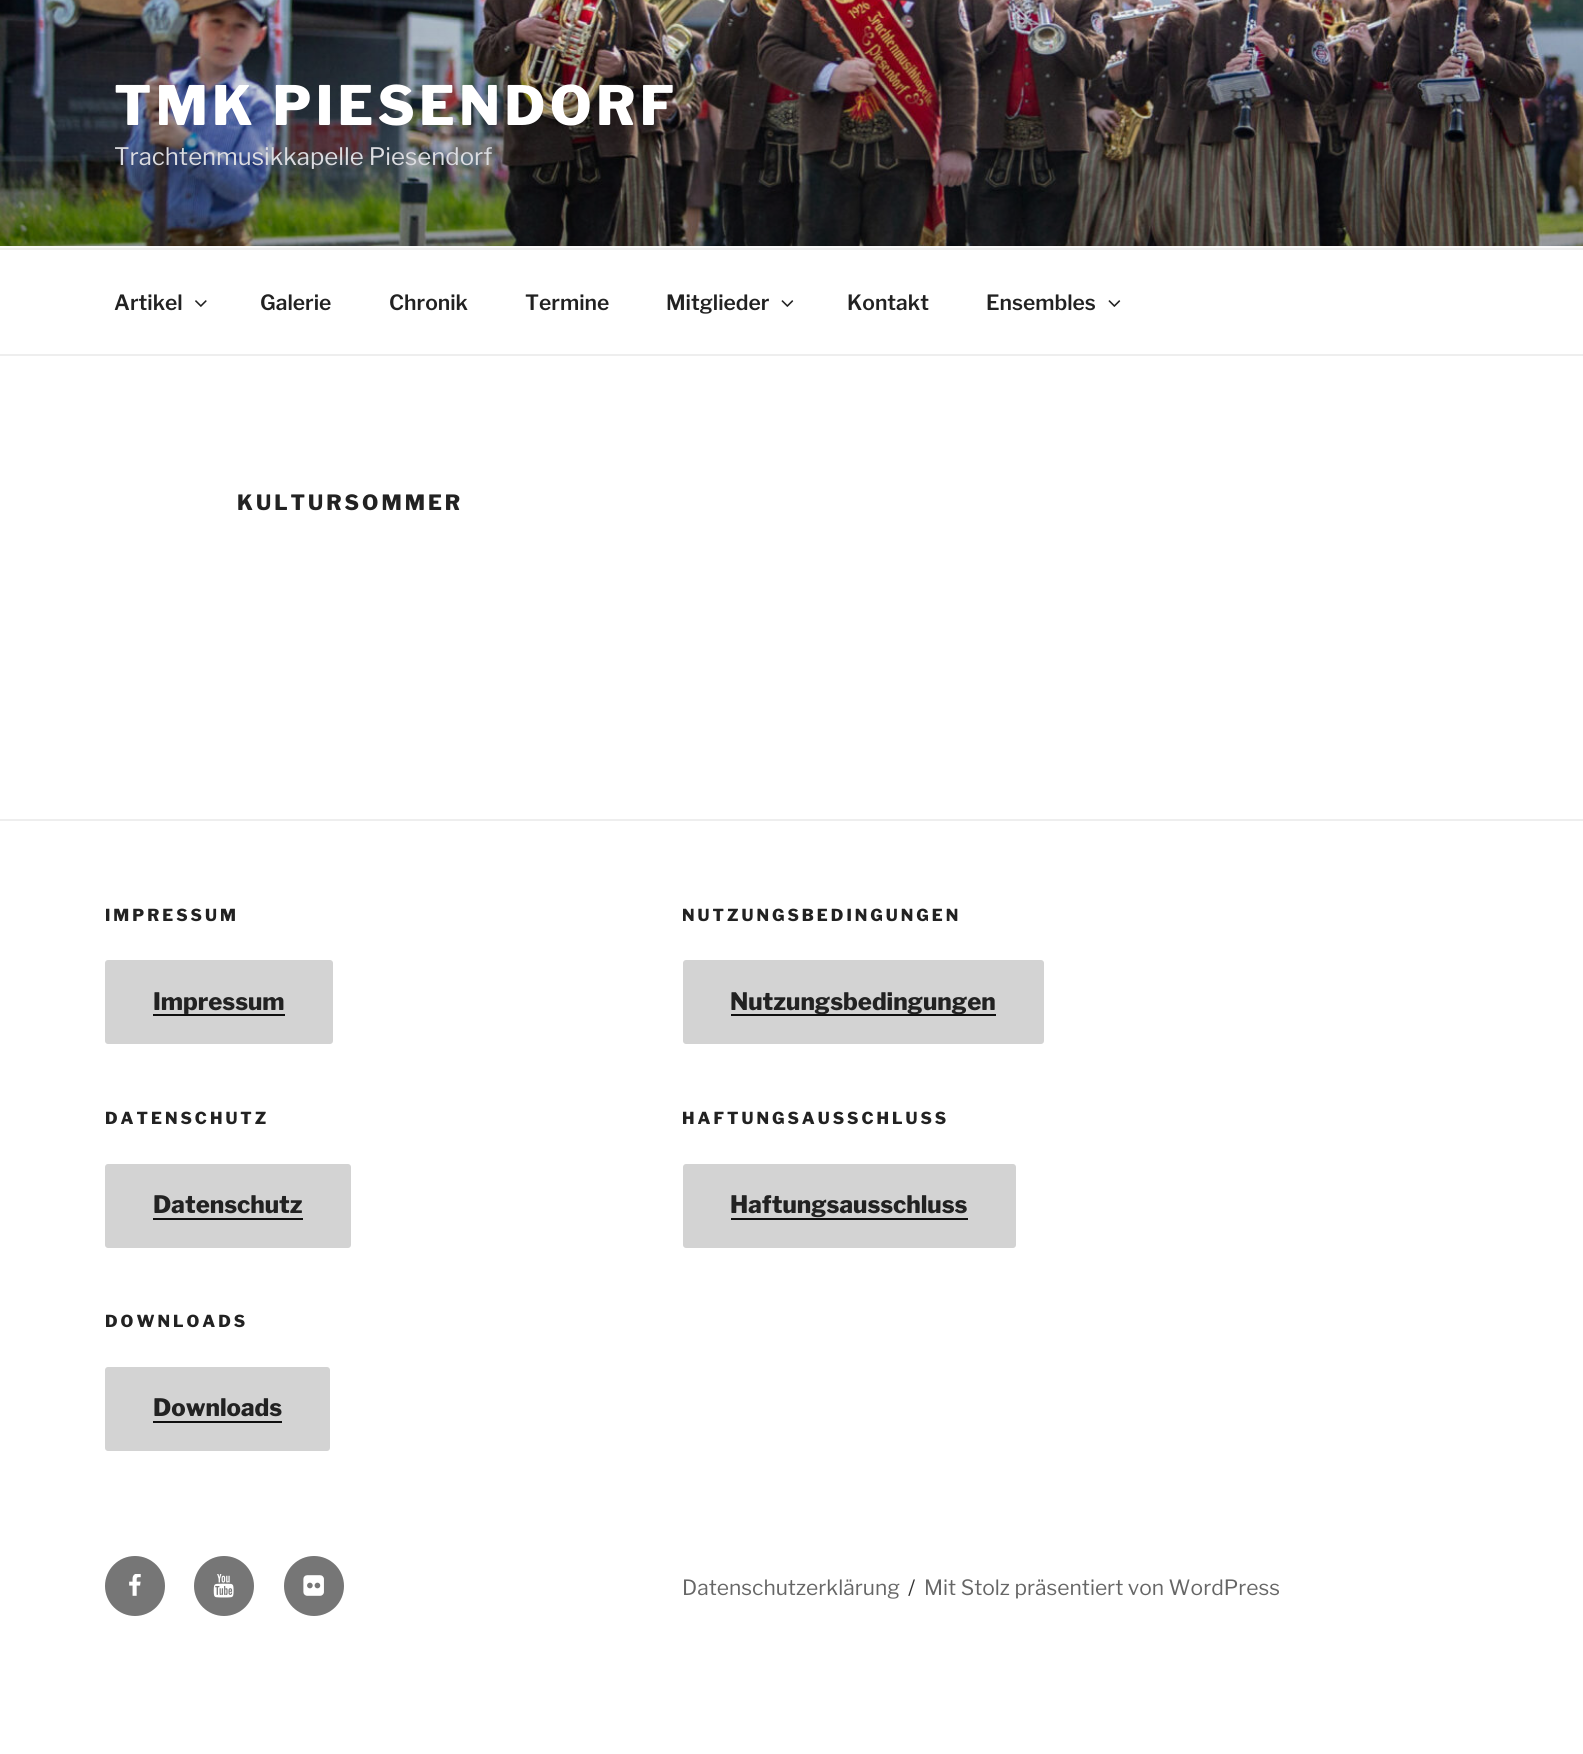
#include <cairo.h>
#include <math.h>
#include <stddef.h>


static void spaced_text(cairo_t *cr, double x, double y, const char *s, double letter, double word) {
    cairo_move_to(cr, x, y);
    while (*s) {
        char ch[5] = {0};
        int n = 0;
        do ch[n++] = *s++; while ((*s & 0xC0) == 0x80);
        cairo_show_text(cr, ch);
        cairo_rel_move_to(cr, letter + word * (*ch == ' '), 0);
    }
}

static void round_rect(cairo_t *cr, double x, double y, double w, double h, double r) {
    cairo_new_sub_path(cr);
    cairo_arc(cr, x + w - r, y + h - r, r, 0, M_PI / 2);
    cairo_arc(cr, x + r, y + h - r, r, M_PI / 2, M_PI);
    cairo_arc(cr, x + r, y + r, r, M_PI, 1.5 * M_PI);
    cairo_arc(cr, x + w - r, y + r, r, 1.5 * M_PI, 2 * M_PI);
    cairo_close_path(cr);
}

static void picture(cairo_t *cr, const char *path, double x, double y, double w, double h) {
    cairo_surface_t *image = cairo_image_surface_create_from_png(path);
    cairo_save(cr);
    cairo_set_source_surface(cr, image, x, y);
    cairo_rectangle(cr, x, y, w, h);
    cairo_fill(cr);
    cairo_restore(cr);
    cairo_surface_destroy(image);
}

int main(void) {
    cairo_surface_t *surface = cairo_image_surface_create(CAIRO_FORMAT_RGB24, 1583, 1754);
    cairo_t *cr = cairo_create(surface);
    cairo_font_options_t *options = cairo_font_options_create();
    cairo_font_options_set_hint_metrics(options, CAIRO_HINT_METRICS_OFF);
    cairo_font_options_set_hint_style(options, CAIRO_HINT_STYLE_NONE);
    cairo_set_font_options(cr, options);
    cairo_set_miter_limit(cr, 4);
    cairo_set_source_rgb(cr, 1, 1, 1);
    cairo_paint(cr);
    cairo_set_source_rgb(cr, 0.98, 0.98, 0.98);
    cairo_rectangle(cr, 0, 246, 1583, 2);
    cairo_fill(cr);
    picture(cr, "img1.png", 0, 0, 1583, 246);
    cairo_select_font_face(cr, "Libre Franklin Thin", CAIRO_FONT_SLANT_NORMAL, CAIRO_FONT_WEIGHT_NORMAL);
    cairo_set_font_size(cr, 54);
    cairo_set_source_rgb(cr, 1, 1, 1);
    spaced_text(cr, 114, 125, "TMK PIESENDORF", 4.25, 0);
    cairo_select_font_face(cr, "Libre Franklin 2 Thin", CAIRO_FONT_SLANT_NORMAL, CAIRO_FONT_WEIGHT_NORMAL);
    cairo_set_font_size(cr, 24);
    cairo_set_source_rgb(cr, 0.859, 0.863, 0.878);
    cairo_move_to(cr, 114, 165);
    cairo_show_text(cr, "Trachtenmusikkapelle Piesendorf");
    cairo_set_source_rgb(cr, 0.933, 0.933, 0.933);
    cairo_rectangle(cr, 0, 248, 1583, 2);
    cairo_fill(cr);
    cairo_rectangle(cr, 0, 354, 1583, 2);
    cairo_fill(cr);
    cairo_select_font_face(cr, "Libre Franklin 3 Thin", CAIRO_FONT_SLANT_NORMAL, CAIRO_FONT_WEIGHT_NORMAL);
    cairo_set_font_size(cr, 21);
    cairo_set_source_rgb(cr, 0.133, 0.133, 0.133);
    cairo_move_to(cr, 114, 310);
    cairo_show_text(cr, "Artikel");
    picture(cr, "img2.png", 195, 300, 12, 7);
    cairo_move_to(cr, 260, 310);
    cairo_show_text(cr, "Galerie");
    cairo_move_to(cr, 389, 310);
    cairo_show_text(cr, "Chronik");
    cairo_move_to(cr, 525, 310);
    cairo_show_text(cr, "Termine");
    cairo_move_to(cr, 666, 310);
    cairo_show_text(cr, "Mitglieder");
    picture(cr, "img3.png", 781, 300, 13, 7);
    cairo_move_to(cr, 847, 310);
    cairo_show_text(cr, "Kontakt");
    cairo_move_to(cr, 986, 310);
    cairo_show_text(cr, "Ensembles");
    picture(cr, "img3.png", 1108, 300, 13, 7);
    cairo_select_font_face(cr, "Libre Franklin Thin", CAIRO_FONT_SLANT_NORMAL, CAIRO_FONT_WEIGHT_NORMAL);
    spaced_text(cr, 237, 510, "KULTURSOMMER", 3, 0);
    cairo_set_source_rgb(cr, 0.933, 0.933, 0.933);
    cairo_rectangle(cr, 0, 819, 1583, 2);
    cairo_fill(cr);
    cairo_set_font_size(cr, 16.5);
    cairo_set_source_rgb(cr, 0.133, 0.133, 0.133);
    spaced_text(cr, 105, 921, "IMPRESSUM", 3, 0);
    cairo_set_source_rgb(cr, 0.827, 0.827, 0.827);
    round_rect(cr, 105, 960, 228, 84, 3);
    cairo_fill(cr);
    cairo_set_font_size(cr, 24);
    cairo_set_source_rgb(cr, 0.133, 0.133, 0.133);
    cairo_move_to(cr, 153, 1010);
    cairo_show_text(cr, "Impressum");
    cairo_set_source_rgb(cr, 0.059, 0.059, 0.059);
    cairo_rectangle(cr, 153, 1014, 132, 2);
    cairo_fill(cr);
    cairo_set_font_size(cr, 16.5);
    cairo_set_source_rgb(cr, 0.133, 0.133, 0.133);
    spaced_text(cr, 105, 1124, "DATENSCHUTZ", 3, 0);
    cairo_set_source_rgb(cr, 0.827, 0.827, 0.827);
    round_rect(cr, 105, 1164, 246, 84, 3);
    cairo_fill(cr);
    cairo_set_font_size(cr, 24);
    cairo_set_source_rgb(cr, 0.133, 0.133, 0.133);
    cairo_move_to(cr, 153, 1213);
    cairo_show_text(cr, "Datenschutz");
    cairo_set_source_rgb(cr, 0.059, 0.059, 0.059);
    cairo_rectangle(cr, 153, 1218, 150, 2);
    cairo_fill(cr);
    cairo_set_font_size(cr, 16.5);
    cairo_set_source_rgb(cr, 0.133, 0.133, 0.133);
    spaced_text(cr, 105, 1327, "DOWNLOADS", 3, 0);
    cairo_set_source_rgb(cr, 0.827, 0.827, 0.827);
    round_rect(cr, 105, 1367, 225, 84, 3);
    cairo_fill(cr);
    cairo_set_font_size(cr, 24);
    cairo_set_source_rgb(cr, 0.133, 0.133, 0.133);
    cairo_move_to(cr, 153, 1416);
    cairo_show_text(cr, "Downloads");
    cairo_set_source_rgb(cr, 0.059, 0.059, 0.059);
    cairo_rectangle(cr, 153, 1421, 129, 2);
    cairo_fill(cr);
    cairo_set_font_size(cr, 16.5);
    cairo_set_source_rgb(cr, 0.133, 0.133, 0.133);
    spaced_text(cr, 682, 921, "NUTZUNGSBEDINGUNGEN", 3, 0);
    cairo_set_source_rgb(cr, 0.827, 0.827, 0.827);
    round_rect(cr, 683, 960, 361, 84, 3);
    cairo_fill(cr);
    cairo_set_source_rgb(cr, 0.059, 0.059, 0.059);
    cairo_rectangle(cr, 731, 1014, 265, 2);
    cairo_fill(cr);
    cairo_set_font_size(cr, 24);
    cairo_set_source_rgb(cr, 0.133, 0.133, 0.133);
    cairo_move_to(cr, 730, 1010);
    cairo_show_text(cr, "Nutzungsbedingungen");
    cairo_set_font_size(cr, 16.5);
    spaced_text(cr, 682, 1124, "HAFTUNGSAUSSCHLUSS", 3, 0);
    cairo_set_source_rgb(cr, 0.827, 0.827, 0.827);
    round_rect(cr, 683, 1164, 333, 84, 3);
    cairo_fill(cr);
    cairo_set_font_size(cr, 24);
    cairo_set_source_rgb(cr, 0.133, 0.133, 0.133);
    cairo_move_to(cr, 730, 1213);
    cairo_show_text(cr, "Haftungsausschluss");
    cairo_set_source_rgb(cr, 0.059, 0.059, 0.059);
    cairo_rectangle(cr, 731, 1218, 237, 2);
    cairo_fill(cr);
    cairo_set_source_rgb(cr, 0.463, 0.463, 0.463);
    cairo_arc(cr, 135, 1586, 30, 0, 2 * M_PI);
    cairo_fill(cr);
    picture(cr, "img4.png", 129, 1574, 12, 22);
    cairo_arc(cr, 224, 1586, 30, 0, 2 * M_PI);
    cairo_fill(cr);
    picture(cr, "img5.png", 213, 1574, 21, 24);
    cairo_arc(cr, 314, 1586, 30, 0, 2 * M_PI);
    cairo_fill(cr);
    picture(cr, "img6.png", 303, 1575, 21, 21);
    cairo_select_font_face(cr, "Libre Franklin 2 Thin", CAIRO_FONT_SLANT_NORMAL, CAIRO_FONT_WEIGHT_NORMAL);
    cairo_set_font_size(cr, 21);
    cairo_set_source_rgb(cr, 0.4, 0.4, 0.4);
    cairo_move_to(cr, 682, 1595);
    cairo_show_text(cr, "Datenschutzerklärung");
    cairo_set_source_rgb(cr, 0.2, 0.2, 0.2);
    cairo_move_to(cr, 908, 1595);
    cairo_show_text(cr, "/");
    cairo_set_source_rgb(cr, 0.4, 0.4, 0.4);
    cairo_move_to(cr, 924, 1595);
    cairo_show_text(cr, "Mit Stolz präsentiert von WordPress");
    cairo_surface_write_to_png(surface, "page.png");
    cairo_font_options_destroy(options);
    cairo_destroy(cr);
    cairo_surface_destroy(surface);
    return 0;
}
